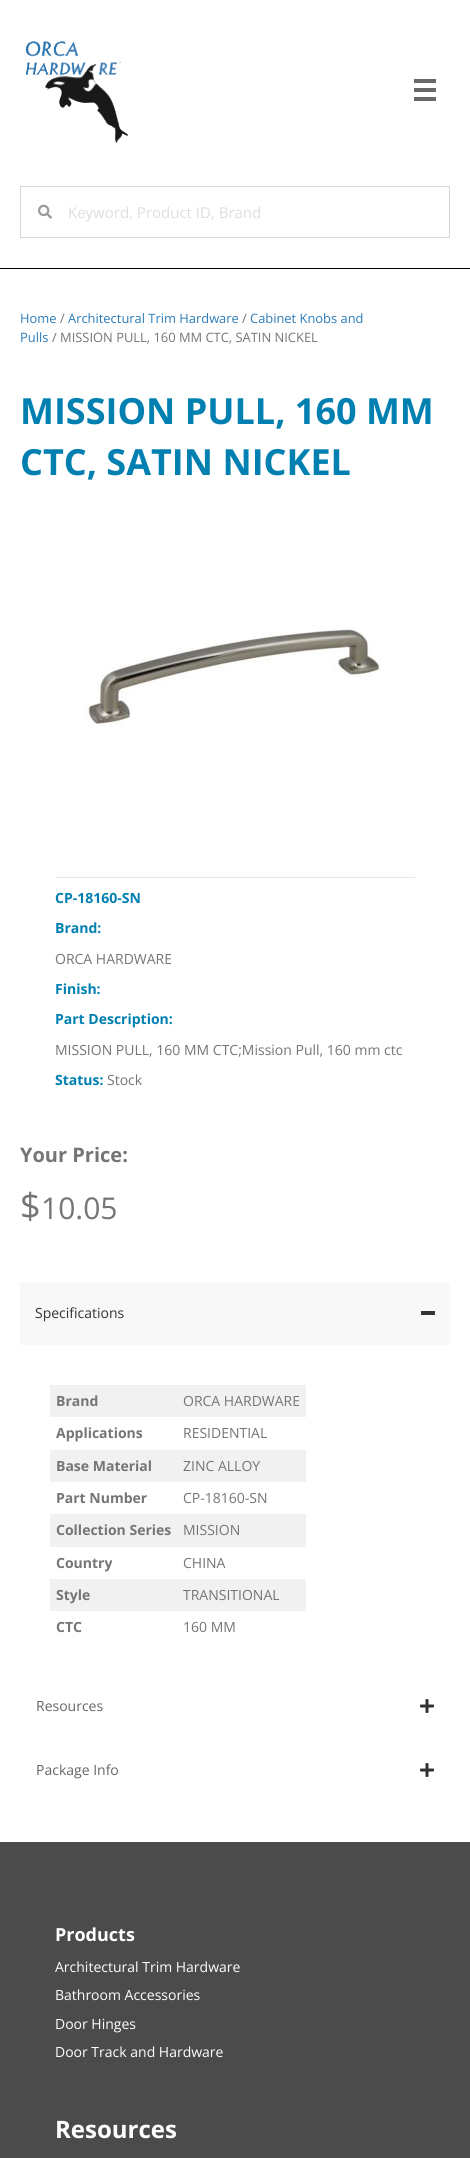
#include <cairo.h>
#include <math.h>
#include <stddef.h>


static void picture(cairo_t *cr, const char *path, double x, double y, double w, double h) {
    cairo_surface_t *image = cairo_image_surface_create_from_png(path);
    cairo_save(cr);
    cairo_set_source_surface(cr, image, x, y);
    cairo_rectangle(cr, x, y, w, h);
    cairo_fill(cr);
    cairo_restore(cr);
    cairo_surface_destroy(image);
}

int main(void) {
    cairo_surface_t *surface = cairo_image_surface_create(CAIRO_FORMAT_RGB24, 470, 2158);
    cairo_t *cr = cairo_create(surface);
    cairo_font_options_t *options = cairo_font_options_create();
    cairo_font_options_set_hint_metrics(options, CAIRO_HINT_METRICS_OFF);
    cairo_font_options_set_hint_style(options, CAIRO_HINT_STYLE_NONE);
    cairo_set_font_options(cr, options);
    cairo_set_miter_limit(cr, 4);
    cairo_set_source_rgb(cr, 1, 1, 1);
    cairo_paint(cr);
    cairo_set_source_rgb(cr, 0, 0, 0);
    cairo_rectangle(cr, 0, 268, 470, 1);
    cairo_fill(cr);
    picture(cr, "img1.png", 25, 41, 103, 102);
    cairo_set_source_rgb(cr, 0.408, 0.408, 0.408);
    cairo_rectangle(cr, 414, 79, 22, 4);
    cairo_fill(cr);
    cairo_rectangle(cr, 414, 88, 22, 4);
    cairo_fill(cr);
    cairo_rectangle(cr, 414, 97, 22, 4);
    cairo_fill(cr);
    cairo_rectangle(cr, 20.5, 186.5, 429, 51);
    cairo_set_source_rgb(cr, 0.839, 0.839, 0.839);
    cairo_set_line_width(cr, 1);
    cairo_stroke(cr);
    picture(cr, "img2.png", 38, 204, 14, 15);
    cairo_select_font_face(cr, "Open Sans", CAIRO_FONT_SLANT_NORMAL, CAIRO_FONT_WEIGHT_NORMAL);
    cairo_set_font_size(cr, 15);
    cairo_set_source_rgb(cr, 0.871, 0.871, 0.871);
    cairo_move_to(cr, 68, 218);
    cairo_show_text(cr, "Keyword, Product ID, Brand");
    cairo_set_font_size(cr, 12.9);
    cairo_set_source_rgb(cr, 0.169, 0.482, 0.725);
    cairo_move_to(cr, 20, 323);
    cairo_show_text(cr, "Home");
    cairo_set_source_rgb(cr, 0.459, 0.459, 0.459);
    cairo_move_to(cr, 60, 323);
    cairo_show_text(cr, "/");
    cairo_set_source_rgb(cr, 0.169, 0.482, 0.725);
    cairo_move_to(cr, 68, 323);
    cairo_show_text(cr, "Architectural Trim Hardware");
    cairo_set_source_rgb(cr, 0.459, 0.459, 0.459);
    cairo_move_to(cr, 242, 323);
    cairo_show_text(cr, "/");
    cairo_set_source_rgb(cr, 0.169, 0.482, 0.725);
    cairo_move_to(cr, 250, 323);
    cairo_show_text(cr, "Cabinet Knobs and");
    cairo_move_to(cr, 20, 342);
    cairo_show_text(cr, "Pulls");
    cairo_set_source_rgb(cr, 0.459, 0.459, 0.459);
    cairo_move_to(cr, 52, 342);
    cairo_show_text(cr, "/ MISSION PULL, 160 MM CTC, SATIN NICKEL");
    cairo_select_font_face(cr, "Open Sans", CAIRO_FONT_SLANT_NORMAL, CAIRO_FONT_WEIGHT_BOLD);
    cairo_set_font_size(cr, 36);
    cairo_set_source_rgb(cr, 0, 0.498, 0.694);
    cairo_move_to(cr, 20, 424);
    cairo_show_text(cr, "MISSION PULL, 160 MM");
    cairo_move_to(cr, 20, 475);
    cairo_show_text(cr, "CTC, SATIN NICKEL");
    picture(cr, "img3.png", 85, 627, 296, 100);
    cairo_set_source_rgb(cr, 0.902, 0.902, 0.902);
    cairo_rectangle(cr, 55, 877, 360, 1);
    cairo_fill(cr);
    cairo_set_font_size(cr, 14);
    cairo_set_source_rgb(cr, 0, 0.498, 0.694);
    cairo_move_to(cr, 55, 903);
    cairo_show_text(cr, "CP-18160-SN");
    cairo_move_to(cr, 55, 933);
    cairo_show_text(cr, "Brand:");
    cairo_select_font_face(cr, "Open Sans", CAIRO_FONT_SLANT_NORMAL, CAIRO_FONT_WEIGHT_NORMAL);
    cairo_set_source_rgb(cr, 0.459, 0.459, 0.459);
    cairo_move_to(cr, 55, 964);
    cairo_show_text(cr, "ORCA HARDWARE");
    cairo_select_font_face(cr, "Open Sans", CAIRO_FONT_SLANT_NORMAL, CAIRO_FONT_WEIGHT_BOLD);
    cairo_set_source_rgb(cr, 0, 0.498, 0.694);
    cairo_move_to(cr, 55, 994);
    cairo_show_text(cr, "Finish:");
    cairo_move_to(cr, 55, 1024);
    cairo_show_text(cr, "Part Description:");
    cairo_select_font_face(cr, "Open Sans", CAIRO_FONT_SLANT_NORMAL, CAIRO_FONT_WEIGHT_NORMAL);
    cairo_set_source_rgb(cr, 0.459, 0.459, 0.459);
    cairo_move_to(cr, 55, 1055);
    cairo_show_text(cr, "MISSION PULL, 160 MM CTC;Mission Pull, 160 mm ctc");
    cairo_select_font_face(cr, "Open Sans", CAIRO_FONT_SLANT_NORMAL, CAIRO_FONT_WEIGHT_BOLD);
    cairo_set_source_rgb(cr, 0, 0.498, 0.694);
    cairo_move_to(cr, 55, 1085);
    cairo_show_text(cr, "Status:");
    cairo_select_font_face(cr, "Open Sans", CAIRO_FONT_SLANT_NORMAL, CAIRO_FONT_WEIGHT_NORMAL);
    cairo_set_source_rgb(cr, 0.459, 0.459, 0.459);
    cairo_move_to(cr, 107, 1085);
    cairo_show_text(cr, "Stock");
    cairo_select_font_face(cr, "Open Sans", CAIRO_FONT_SLANT_NORMAL, CAIRO_FONT_WEIGHT_BOLD);
    cairo_set_font_size(cr, 20);
    cairo_move_to(cr, 20, 1162);
    cairo_show_text(cr, "Your Price:");
    cairo_select_font_face(cr, "Open Sans", CAIRO_FONT_SLANT_NORMAL, CAIRO_FONT_WEIGHT_NORMAL);
    cairo_set_font_size(cr, 36);
    cairo_move_to(cr, 20, 1219);
    cairo_show_text(cr, "$");
    cairo_set_font_size(cr, 30);
    cairo_move_to(cr, 41, 1219);
    cairo_show_text(cr, "10.05");
    cairo_set_source_rgb(cr, 0.969, 0.969, 0.969);
    cairo_rectangle(cr, 20, 1282, 430, 63);
    cairo_fill(cr);
    cairo_set_font_size(cr, 14);
    cairo_set_source_rgb(cr, 0.2, 0.2, 0.2);
    cairo_move_to(cr, 35, 1318);
    cairo_show_text(cr, "Specifications");
    cairo_rectangle(cr, 421, 1311, 14, 4);
    cairo_fill(cr);
    cairo_set_source_rgb(cr, 0.945, 0.945, 0.945);
    cairo_rectangle(cr, 50, 1385, 256, 32);
    cairo_fill(cr);
    cairo_select_font_face(cr, "Open Sans", CAIRO_FONT_SLANT_NORMAL, CAIRO_FONT_WEIGHT_BOLD);
    cairo_set_source_rgb(cr, 0.459, 0.459, 0.459);
    cairo_move_to(cr, 56, 1406);
    cairo_show_text(cr, "Brand");
    cairo_select_font_face(cr, "Open Sans", CAIRO_FONT_SLANT_NORMAL, CAIRO_FONT_WEIGHT_NORMAL);
    cairo_move_to(cr, 183, 1406);
    cairo_show_text(cr, "ORCA HARDWARE");
    cairo_select_font_face(cr, "Open Sans", CAIRO_FONT_SLANT_NORMAL, CAIRO_FONT_WEIGHT_BOLD);
    cairo_move_to(cr, 56, 1438);
    cairo_show_text(cr, "Applications");
    cairo_select_font_face(cr, "Open Sans", CAIRO_FONT_SLANT_NORMAL, CAIRO_FONT_WEIGHT_NORMAL);
    cairo_move_to(cr, 183, 1438);
    cairo_show_text(cr, "RESIDENTIAL");
    cairo_set_source_rgb(cr, 0.945, 0.945, 0.945);
    cairo_rectangle(cr, 50, 1450, 256, 32);
    cairo_fill(cr);
    cairo_select_font_face(cr, "Open Sans", CAIRO_FONT_SLANT_NORMAL, CAIRO_FONT_WEIGHT_BOLD);
    cairo_set_source_rgb(cr, 0.459, 0.459, 0.459);
    cairo_move_to(cr, 56, 1471);
    cairo_show_text(cr, "Base Material");
    cairo_select_font_face(cr, "Open Sans", CAIRO_FONT_SLANT_NORMAL, CAIRO_FONT_WEIGHT_NORMAL);
    cairo_move_to(cr, 183, 1471);
    cairo_show_text(cr, "ZINC ALLOY");
    cairo_select_font_face(cr, "Open Sans", CAIRO_FONT_SLANT_NORMAL, CAIRO_FONT_WEIGHT_BOLD);
    cairo_move_to(cr, 56, 1503);
    cairo_show_text(cr, "Part Number");
    cairo_select_font_face(cr, "Open Sans", CAIRO_FONT_SLANT_NORMAL, CAIRO_FONT_WEIGHT_NORMAL);
    cairo_move_to(cr, 183, 1503);
    cairo_show_text(cr, "CP-18160-SN");
    cairo_set_source_rgb(cr, 0.945, 0.945, 0.945);
    cairo_rectangle(cr, 50, 1514, 256, 33);
    cairo_fill(cr);
    cairo_select_font_face(cr, "Open Sans", CAIRO_FONT_SLANT_NORMAL, CAIRO_FONT_WEIGHT_BOLD);
    cairo_set_source_rgb(cr, 0.459, 0.459, 0.459);
    cairo_move_to(cr, 56, 1535);
    cairo_show_text(cr, "Collection Series");
    cairo_select_font_face(cr, "Open Sans", CAIRO_FONT_SLANT_NORMAL, CAIRO_FONT_WEIGHT_NORMAL);
    cairo_move_to(cr, 183, 1535);
    cairo_show_text(cr, "MISSION");
    cairo_select_font_face(cr, "Open Sans", CAIRO_FONT_SLANT_NORMAL, CAIRO_FONT_WEIGHT_BOLD);
    cairo_move_to(cr, 56, 1568);
    cairo_show_text(cr, "Country");
    cairo_select_font_face(cr, "Open Sans", CAIRO_FONT_SLANT_NORMAL, CAIRO_FONT_WEIGHT_NORMAL);
    cairo_move_to(cr, 183, 1568);
    cairo_show_text(cr, "CHINA");
    cairo_set_source_rgb(cr, 0.945, 0.945, 0.945);
    cairo_rectangle(cr, 50, 1579, 256, 32);
    cairo_fill(cr);
    cairo_select_font_face(cr, "Open Sans", CAIRO_FONT_SLANT_NORMAL, CAIRO_FONT_WEIGHT_BOLD);
    cairo_set_source_rgb(cr, 0.459, 0.459, 0.459);
    cairo_move_to(cr, 56, 1600);
    cairo_show_text(cr, "Style");
    cairo_select_font_face(cr, "Open Sans", CAIRO_FONT_SLANT_NORMAL, CAIRO_FONT_WEIGHT_NORMAL);
    cairo_move_to(cr, 183, 1600);
    cairo_show_text(cr, "TRANSITIONAL");
    cairo_select_font_face(cr, "Open Sans", CAIRO_FONT_SLANT_NORMAL, CAIRO_FONT_WEIGHT_BOLD);
    cairo_move_to(cr, 56, 1632);
    cairo_show_text(cr, "CTC");
    cairo_select_font_face(cr, "Open Sans", CAIRO_FONT_SLANT_NORMAL, CAIRO_FONT_WEIGHT_NORMAL);
    cairo_move_to(cr, 183, 1632);
    cairo_show_text(cr, "160 MM");
    cairo_set_source_rgb(cr, 0.4, 0.4, 0.4);
    cairo_move_to(cr, 36, 1711);
    cairo_show_text(cr, "Resources");
    picture(cr, "img4.png", 420, 1699, 14, 14);
    cairo_move_to(cr, 36, 1775);
    cairo_show_text(cr, "Package Info");
    picture(cr, "img4.png", 420, 1763, 14, 14);
    cairo_set_source_rgb(cr, 0.298, 0.294, 0.298);
    cairo_rectangle(cr, 0, 1842, 470, 316);
    cairo_fill(cr);
    cairo_select_font_face(cr, "Open Sans", CAIRO_FONT_SLANT_NORMAL, CAIRO_FONT_WEIGHT_BOLD);
    cairo_set_font_size(cr, 18);
    cairo_set_source_rgb(cr, 1, 1, 1);
    cairo_move_to(cr, 55, 1941);
    cairo_show_text(cr, "Products");
    cairo_select_font_face(cr, "Open Sans", CAIRO_FONT_SLANT_NORMAL, CAIRO_FONT_WEIGHT_NORMAL);
    cairo_set_font_size(cr, 14);
    cairo_move_to(cr, 55, 1972);
    cairo_show_text(cr, "Architectural Trim Hardware");
    cairo_move_to(cr, 55, 2000);
    cairo_show_text(cr, "Bathroom Accessories");
    cairo_move_to(cr, 55, 2029);
    cairo_show_text(cr, "Door Hinges");
    cairo_move_to(cr, 55, 2057);
    cairo_show_text(cr, "Door Track and Hardware");
    cairo_select_font_face(cr, "Open Sans", CAIRO_FONT_SLANT_NORMAL, CAIRO_FONT_WEIGHT_BOLD);
    cairo_set_font_size(cr, 24);
    cairo_move_to(cr, 55, 2138);
    cairo_show_text(cr, "Resources");
    cairo_surface_write_to_png(surface, "page.png");
    cairo_font_options_destroy(options);
    cairo_destroy(cr);
    cairo_surface_destroy(surface);
    return 0;
}
